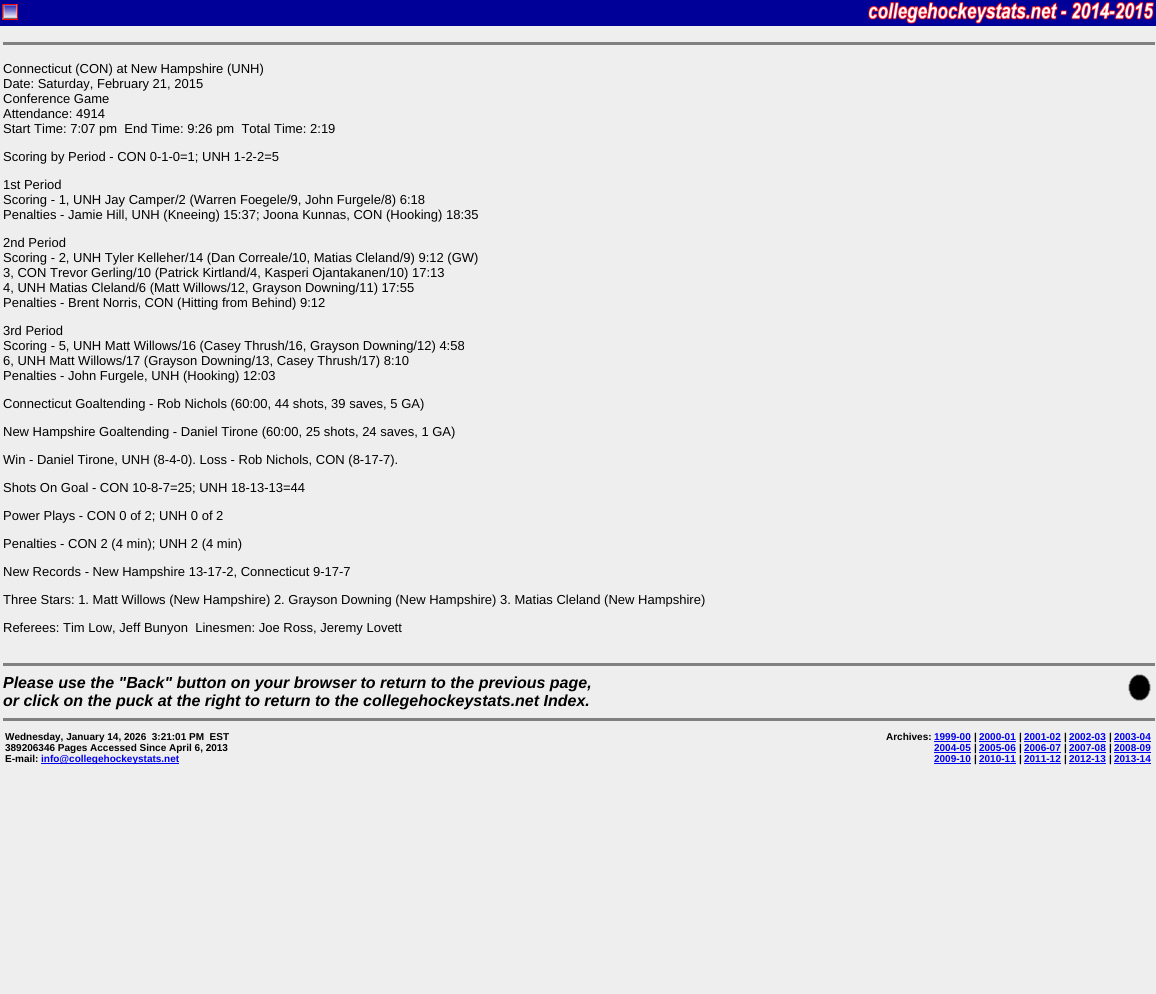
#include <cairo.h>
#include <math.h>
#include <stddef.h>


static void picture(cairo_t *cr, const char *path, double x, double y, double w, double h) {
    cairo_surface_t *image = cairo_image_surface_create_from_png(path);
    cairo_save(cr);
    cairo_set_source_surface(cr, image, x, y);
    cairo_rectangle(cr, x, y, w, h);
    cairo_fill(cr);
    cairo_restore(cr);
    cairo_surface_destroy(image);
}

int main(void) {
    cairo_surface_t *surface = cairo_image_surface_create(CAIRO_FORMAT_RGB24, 1156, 994);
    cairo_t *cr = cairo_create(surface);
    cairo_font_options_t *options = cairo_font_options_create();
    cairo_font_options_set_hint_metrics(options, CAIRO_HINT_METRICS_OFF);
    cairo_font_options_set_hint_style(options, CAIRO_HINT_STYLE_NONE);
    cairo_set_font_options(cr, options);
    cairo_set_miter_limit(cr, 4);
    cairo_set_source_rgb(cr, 0.933, 0.933, 0.933);
    cairo_paint(cr);
    cairo_set_source_rgb(cr, 0, 0, 0.6);
    cairo_rectangle(cr, 0, 0, 1156, 26);
    cairo_fill(cr);
    picture(cr, "img1.png", 2, 4, 16, 16);
    picture(cr, "img2.png", 868, 2, 286, 22);
    cairo_set_source_rgb(cr, 0.502, 0.502, 0.502);
    cairo_rectangle(cr, 3, 42, 1152, 3);
    cairo_fill(cr);
    cairo_select_font_face(cr, "Liberation Sans", CAIRO_FONT_SLANT_NORMAL, CAIRO_FONT_WEIGHT_NORMAL);
    cairo_set_font_size(cr, 13);
    cairo_set_source_rgb(cr, 0, 0, 0);
    cairo_move_to(cr, 3, 73);
    cairo_show_text(cr, "Connecticut (CON) at New Hampshire (UNH)");
    cairo_move_to(cr, 3, 88);
    cairo_show_text(cr, "Date: Saturday, February 21, 2015");
    cairo_move_to(cr, 3, 103);
    cairo_show_text(cr, "Conference Game");
    cairo_move_to(cr, 3, 118);
    cairo_show_text(cr, "Attendance: 4914");
    cairo_move_to(cr, 3, 133);
    cairo_show_text(cr, "Start Time: 7:07 pm  End Time: 9:26 pm  Total Time: 2:19");
    cairo_move_to(cr, 3, 161);
    cairo_show_text(cr, "Scoring by Period - CON 0-1-0=1; UNH 1-2-2=5");
    cairo_move_to(cr, 3, 189);
    cairo_show_text(cr, "1st Period");
    cairo_move_to(cr, 3, 204);
    cairo_show_text(cr, "Scoring - 1, UNH Jay Camper/2 (Warren Foegele/9, John Furgele/8) 6:18");
    cairo_move_to(cr, 3, 219);
    cairo_show_text(cr, "Penalties - Jamie Hill, UNH (Kneeing) 15:37; Joona Kunnas, CON (Hooking) 18:35");
    cairo_move_to(cr, 3, 247);
    cairo_show_text(cr, "2nd Period");
    cairo_move_to(cr, 3, 262);
    cairo_show_text(cr, "Scoring - 2, UNH Tyler Kelleher/14 (Dan Correale/10, Matias Cleland/9) 9:12 (GW)");
    cairo_move_to(cr, 3, 277);
    cairo_show_text(cr, "3, CON Trevor Gerling/10 (Patrick Kirtland/4, Kasperi Ojantakanen/10) 17:13");
    cairo_move_to(cr, 3, 292);
    cairo_show_text(cr, "4, UNH Matias Cleland/6 (Matt Willows/12, Grayson Downing/11) 17:55");
    cairo_move_to(cr, 3, 307);
    cairo_show_text(cr, "Penalties - Brent Norris, CON (Hitting from Behind) 9:12");
    cairo_move_to(cr, 3, 335);
    cairo_show_text(cr, "3rd Period");
    cairo_move_to(cr, 3, 350);
    cairo_show_text(cr, "Scoring - 5, UNH Matt Willows/16 (Casey Thrush/16, Grayson Downing/12) 4:58");
    cairo_move_to(cr, 3, 365);
    cairo_show_text(cr, "6, UNH Matt Willows/17 (Grayson Downing/13, Casey Thrush/17) 8:10");
    cairo_move_to(cr, 3, 380);
    cairo_show_text(cr, "Penalties - John Furgele, UNH (Hooking) 12:03");
    cairo_move_to(cr, 3, 408);
    cairo_show_text(cr, "Connecticut Goaltending - Rob Nichols (60:00, 44 shots, 39 saves, 5 GA)");
    cairo_move_to(cr, 3, 436);
    cairo_show_text(cr, "New Hampshire Goaltending - Daniel Tirone (60:00, 25 shots, 24 saves, 1 GA)");
    cairo_move_to(cr, 3, 464);
    cairo_show_text(cr, "Win - Daniel Tirone, UNH (8-4-0). Loss - Rob Nichols, CON (8-17-7).");
    cairo_move_to(cr, 3, 492);
    cairo_show_text(cr, "Shots On Goal - CON 10-8-7=25; UNH 18-13-13=44");
    cairo_move_to(cr, 3, 520);
    cairo_show_text(cr, "Power Plays - CON 0 of 2; UNH 0 of 2");
    cairo_move_to(cr, 3, 548);
    cairo_show_text(cr, "Penalties - CON 2 (4 min); UNH 2 (4 min)");
    cairo_move_to(cr, 3, 576);
    cairo_show_text(cr, "New Records - New Hampshire 13-17-2, Connecticut 9-17-7");
    cairo_move_to(cr, 3, 604);
    cairo_show_text(cr, "Three Stars: 1. Matt Willows (New Hampshire) 2. Grayson Downing (New Hampshire) 3. Matias Cleland (New Hampshire)");
    cairo_move_to(cr, 3, 632);
    cairo_show_text(cr, "Referees: Tim Low, Jeff Bunyon  Linesmen: Joe Ross, Jeremy Lovett");
    cairo_set_source_rgb(cr, 0.502, 0.502, 0.502);
    cairo_rectangle(cr, 3, 663, 1152, 3);
    cairo_fill(cr);
    cairo_select_font_face(cr, "Liberation Sans", CAIRO_FONT_SLANT_ITALIC, CAIRO_FONT_WEIGHT_BOLD);
    cairo_set_font_size(cr, 16);
    cairo_set_source_rgb(cr, 0, 0, 0);
    cairo_move_to(cr, 3, 688);
    cairo_show_text(cr, "Please use the \"Back\" button on your browser to return to the previous page,");
    picture(cr, "img3.png", 1128, 674, 23, 27);
    cairo_move_to(cr, 3, 706);
    cairo_show_text(cr, "or click on the puck at the right to return to the collegehockeystats.net Index.");
    cairo_set_source_rgb(cr, 0.502, 0.502, 0.502);
    cairo_rectangle(cr, 3, 718, 1152, 3);
    cairo_fill(cr);
    cairo_select_font_face(cr, "Liberation Sans", CAIRO_FONT_SLANT_NORMAL, CAIRO_FONT_WEIGHT_BOLD);
    cairo_set_font_size(cr, 10);
    cairo_set_source_rgb(cr, 0, 0, 0);
    cairo_move_to(cr, 5, 740);
    cairo_show_text(cr, "Wednesday, January 14, 2026  3:21:01 PM  EST");
    cairo_move_to(cr, 5, 751);
    cairo_show_text(cr, "389206346 Pages Accessed Since April 6, 2013");
    cairo_move_to(cr, 5, 762);
    cairo_show_text(cr, "E-mail:");
    cairo_set_source_rgb(cr, 0, 0, 0.933);
    cairo_rectangle(cr, 41, 763, 138, 1);
    cairo_fill(cr);
    cairo_move_to(cr, 41, 762);
    cairo_show_text(cr, "info@collegehockeystats.net");
    cairo_set_source_rgb(cr, 0, 0, 0);
    cairo_move_to(cr, 886, 740);
    cairo_show_text(cr, "Archives:");
    cairo_set_source_rgb(cr, 0, 0, 0.933);
    cairo_move_to(cr, 934, 740);
    cairo_show_text(cr, "1999-00");
    cairo_rectangle(cr, 934, 741, 37, 1);
    cairo_fill(cr);
    cairo_set_source_rgb(cr, 0, 0, 0);
    cairo_move_to(cr, 974, 740);
    cairo_show_text(cr, "|");
    cairo_set_source_rgb(cr, 0, 0, 0.933);
    cairo_move_to(cr, 979, 740);
    cairo_show_text(cr, "2000-01");
    cairo_rectangle(cr, 979, 741, 37, 1);
    cairo_fill(cr);
    cairo_set_source_rgb(cr, 0, 0, 0);
    cairo_move_to(cr, 1019, 740);
    cairo_show_text(cr, "|");
    cairo_set_source_rgb(cr, 0, 0, 0.933);
    cairo_move_to(cr, 1024, 740);
    cairo_show_text(cr, "2001-02");
    cairo_rectangle(cr, 1024, 741, 37, 1);
    cairo_fill(cr);
    cairo_set_source_rgb(cr, 0, 0, 0);
    cairo_move_to(cr, 1064, 740);
    cairo_show_text(cr, "|");
    cairo_set_source_rgb(cr, 0, 0, 0.933);
    cairo_move_to(cr, 1069, 740);
    cairo_show_text(cr, "2002-03");
    cairo_rectangle(cr, 1069, 741, 37, 1);
    cairo_fill(cr);
    cairo_set_source_rgb(cr, 0, 0, 0);
    cairo_move_to(cr, 1109, 740);
    cairo_show_text(cr, "|");
    cairo_set_source_rgb(cr, 0, 0, 0.933);
    cairo_move_to(cr, 1114, 740);
    cairo_show_text(cr, "2003-04");
    cairo_rectangle(cr, 1114, 741, 37, 1);
    cairo_fill(cr);
    cairo_move_to(cr, 934, 751);
    cairo_show_text(cr, "2004-05");
    cairo_rectangle(cr, 934, 752, 37, 1);
    cairo_fill(cr);
    cairo_set_source_rgb(cr, 0, 0, 0);
    cairo_move_to(cr, 974, 751);
    cairo_show_text(cr, "|");
    cairo_set_source_rgb(cr, 0, 0, 0.933);
    cairo_move_to(cr, 979, 751);
    cairo_show_text(cr, "2005-06");
    cairo_rectangle(cr, 979, 752, 37, 1);
    cairo_fill(cr);
    cairo_set_source_rgb(cr, 0, 0, 0);
    cairo_move_to(cr, 1019, 751);
    cairo_show_text(cr, "|");
    cairo_set_source_rgb(cr, 0, 0, 0.933);
    cairo_move_to(cr, 1024, 751);
    cairo_show_text(cr, "2006-07");
    cairo_rectangle(cr, 1024, 752, 37, 1);
    cairo_fill(cr);
    cairo_set_source_rgb(cr, 0, 0, 0);
    cairo_move_to(cr, 1064, 751);
    cairo_show_text(cr, "|");
    cairo_set_source_rgb(cr, 0, 0, 0.933);
    cairo_move_to(cr, 1069, 751);
    cairo_show_text(cr, "2007-08");
    cairo_rectangle(cr, 1069, 752, 37, 1);
    cairo_fill(cr);
    cairo_set_source_rgb(cr, 0, 0, 0);
    cairo_move_to(cr, 1109, 751);
    cairo_show_text(cr, "|");
    cairo_set_source_rgb(cr, 0, 0, 0.933);
    cairo_move_to(cr, 1114, 751);
    cairo_show_text(cr, "2008-09");
    cairo_rectangle(cr, 1114, 752, 37, 1);
    cairo_fill(cr);
    cairo_move_to(cr, 934, 762);
    cairo_show_text(cr, "2009-10");
    cairo_rectangle(cr, 934, 763, 37, 1);
    cairo_fill(cr);
    cairo_set_source_rgb(cr, 0, 0, 0);
    cairo_move_to(cr, 974, 762);
    cairo_show_text(cr, "|");
    cairo_set_source_rgb(cr, 0, 0, 0.933);
    cairo_move_to(cr, 979, 762);
    cairo_show_text(cr, "2010-11");
    cairo_rectangle(cr, 979, 763, 37, 1);
    cairo_fill(cr);
    cairo_set_source_rgb(cr, 0, 0, 0);
    cairo_move_to(cr, 1019, 762);
    cairo_show_text(cr, "|");
    cairo_set_source_rgb(cr, 0, 0, 0.933);
    cairo_move_to(cr, 1024, 762);
    cairo_show_text(cr, "2011-12");
    cairo_rectangle(cr, 1024, 763, 37, 1);
    cairo_fill(cr);
    cairo_set_source_rgb(cr, 0, 0, 0);
    cairo_move_to(cr, 1064, 762);
    cairo_show_text(cr, "|");
    cairo_set_source_rgb(cr, 0, 0, 0.933);
    cairo_move_to(cr, 1069, 762);
    cairo_show_text(cr, "2012-13");
    cairo_rectangle(cr, 1069, 763, 37, 1);
    cairo_fill(cr);
    cairo_set_source_rgb(cr, 0, 0, 0);
    cairo_move_to(cr, 1109, 762);
    cairo_show_text(cr, "|");
    cairo_set_source_rgb(cr, 0, 0, 0.933);
    cairo_move_to(cr, 1114, 762);
    cairo_show_text(cr, "2013-14");
    cairo_rectangle(cr, 1114, 763, 37, 1);
    cairo_fill(cr);
    cairo_surface_write_to_png(surface, "page.png");
    cairo_font_options_destroy(options);
    cairo_destroy(cr);
    cairo_surface_destroy(surface);
    return 0;
}
